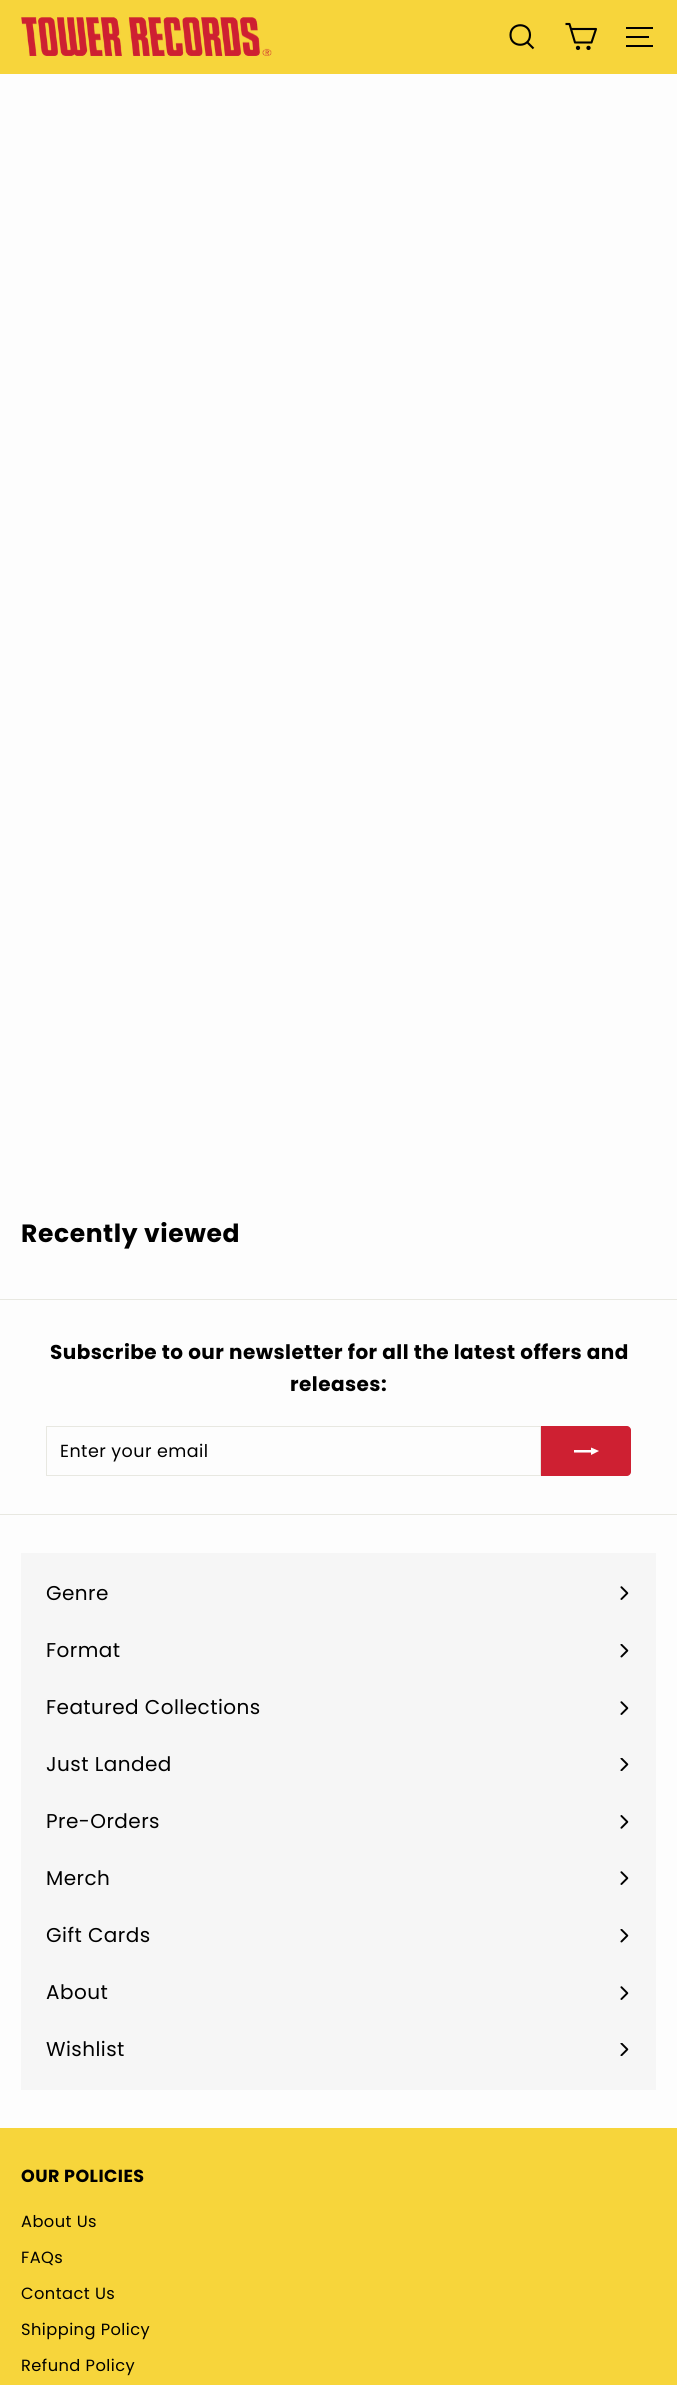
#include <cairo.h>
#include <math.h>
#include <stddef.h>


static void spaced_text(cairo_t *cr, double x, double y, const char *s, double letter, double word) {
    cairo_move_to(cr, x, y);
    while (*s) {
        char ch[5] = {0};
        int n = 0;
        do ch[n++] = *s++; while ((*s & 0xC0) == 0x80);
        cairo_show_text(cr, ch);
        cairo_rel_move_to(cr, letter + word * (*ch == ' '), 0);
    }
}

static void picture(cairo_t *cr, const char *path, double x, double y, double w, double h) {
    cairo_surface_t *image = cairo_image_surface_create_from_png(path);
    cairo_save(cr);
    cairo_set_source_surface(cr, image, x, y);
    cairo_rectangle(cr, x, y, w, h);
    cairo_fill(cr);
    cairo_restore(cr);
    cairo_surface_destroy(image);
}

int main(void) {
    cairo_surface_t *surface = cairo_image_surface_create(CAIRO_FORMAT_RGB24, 677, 2385);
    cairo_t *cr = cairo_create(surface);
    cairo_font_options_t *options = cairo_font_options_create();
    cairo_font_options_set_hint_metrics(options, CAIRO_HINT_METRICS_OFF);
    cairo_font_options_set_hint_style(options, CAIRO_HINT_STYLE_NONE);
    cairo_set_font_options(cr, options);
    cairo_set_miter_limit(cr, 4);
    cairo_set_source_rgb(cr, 0.992, 0.992, 0.992);
    cairo_paint(cr);
    cairo_set_source_rgb(cr, 0.965, 0.835, 0.231);
    cairo_rectangle(cr, 0, 0, 677, 74);
    cairo_fill(cr);
    picture(cr, "img1.png", 21, 17, 251, 39);
    cairo_new_path(cr);
    cairo_move_to(cr, 530, 35);
    cairo_curve_to(cr, 530, 48, 510.5, 48, 510.5, 35);
    cairo_curve_to(cr, 510.5, 22, 530, 22, 530, 35);
    cairo_move_to(cr, 533.5, 48.5);
    cairo_line_to(cr, 527, 42);
    cairo_set_source_rgb(cr, 0, 0, 0);
    cairo_set_line_width(cr, 2.1);
    cairo_set_line_join(cr, CAIRO_LINE_JOIN_ROUND);
    cairo_stroke(cr);
    cairo_new_path(cr);
    cairo_move_to(cr, 571, 29);
    cairo_line_to(cr, 596, 29);
    cairo_line_to(cr, 591.5, 42.5);
    cairo_line_to(cr, 575, 42.5);
    cairo_line_to(cr, 569.5, 24);
    cairo_line_to(cr, 565.5, 24);
    cairo_stroke(cr);
    cairo_arc(cr, 578, 47.9, 1.1, 0, 2 * M_PI);
    cairo_set_line_join(cr, CAIRO_LINE_JOIN_MITER);
    cairo_stroke(cr);
    cairo_arc(cr, 588.5, 47.9, 1.1, 0, 2 * M_PI);
    cairo_stroke(cr);
    cairo_rectangle(cr, 626, 27, 27, 2);
    cairo_fill(cr);
    cairo_rectangle(cr, 626, 36, 23, 2);
    cairo_fill(cr);
    cairo_rectangle(cr, 626, 45, 27, 2);
    cairo_fill(cr);
    cairo_select_font_face(cr, "Poppins", CAIRO_FONT_SLANT_NORMAL, CAIRO_FONT_WEIGHT_BOLD);
    cairo_set_font_size(cr, 25);
    spaced_text(cr, 21, 1242, "Recently viewed", 0.6, 0);
    cairo_set_source_rgb(cr, 0.91, 0.91, 0.882);
    cairo_rectangle(cr, 0, 1299, 677, 1);
    cairo_fill(cr);
    cairo_set_font_size(cr, 20);
    cairo_set_source_rgb(cr, 0, 0, 0);
    spaced_text(cr, 50, 1359, "Subscribe to our newsletter for all the latest offers and", 0.45, 0);
    spaced_text(cr, 290, 1391, "releases:", 0.45, 0);
    cairo_rectangle(cr, 46.5, 1426.5, 494, 49);
    cairo_set_source_rgb(cr, 0.91, 0.91, 0.882);
    cairo_set_line_width(cr, 1);
    cairo_stroke(cr);
    cairo_select_font_face(cr, "Poppins", CAIRO_FONT_SLANT_NORMAL, CAIRO_FONT_WEIGHT_NORMAL);
    cairo_set_font_size(cr, 17.5);
    cairo_set_source_rgb(cr, 0, 0, 0);
    spaced_text(cr, 60, 1457, "Enter your email", 0.45, 0);
    cairo_set_source_rgb(cr, 0.808, 0.125, 0.196);
    cairo_new_path(cr);
    cairo_move_to(cr, 541, 1426);
    cairo_line_to(cr, 627, 1426);
    cairo_curve_to(cr, 629, 1426, 631, 1428, 631, 1430);
    cairo_line_to(cr, 631, 1472);
    cairo_curve_to(cr, 631, 1474, 629, 1476, 627, 1476);
    cairo_line_to(cr, 541, 1476);
    cairo_close_path(cr);
    cairo_fill(cr);
    cairo_set_source_rgb(cr, 1, 1, 1);
    cairo_new_path(cr);
    cairo_move_to(cr, 574, 1452.5);
    cairo_line_to(cr, 574, 1450);
    cairo_line_to(cr, 591, 1450);
    cairo_line_to(cr, 591, 1447.5);
    cairo_line_to(cr, 599, 1451);
    cairo_line_to(cr, 591, 1455);
    cairo_line_to(cr, 591, 1452.5);
    cairo_close_path(cr);
    cairo_fill(cr);
    cairo_set_source_rgb(cr, 0.91, 0.91, 0.882);
    cairo_rectangle(cr, 0, 1514, 677, 1);
    cairo_fill(cr);
    picture(cr, "img2.png", 620, 1586, 9, 14);
    picture(cr, "img3.png", 620, 1644, 9, 14);
    picture(cr, "img2.png", 620, 1701, 9, 14);
    picture(cr, "img4.png", 620, 1758, 9, 13);
    picture(cr, "img5.png", 620, 1815, 9, 14);
    picture(cr, "img2.png", 620, 1871, 9, 14);
    picture(cr, "img3.png", 620, 1929, 9, 14);
    picture(cr, "img2.png", 620, 1986, 9, 14);
    picture(cr, "img4.png", 620, 2043, 9, 13);
    cairo_set_source_rgba(cr, 0, 0, 0, 0.03);
    cairo_rectangle(cr, 21, 1553, 635, 537);
    cairo_fill(cr);
    cairo_set_font_size(cr, 20);
    cairo_set_source_rgb(cr, 0, 0, 0);
    spaced_text(cr, 46, 1600, "Genre", 0.45, 0);
    spaced_text(cr, 46, 1657, "Format", 0.45, 0);
    spaced_text(cr, 46, 1714, "Featured Collections", 0.45, 0);
    spaced_text(cr, 46, 1771, "Just Landed", 0.45, 0);
    spaced_text(cr, 46, 1828, "Pre-Orders", 0.45, 0);
    spaced_text(cr, 46, 1885, "Merch", 0.45, 0);
    spaced_text(cr, 46, 1942, "Gift Cards", 0.45, 0);
    spaced_text(cr, 46, 1999, "About", 0.45, 0);
    spaced_text(cr, 46, 2056, "Wishlist", 0.45, 0);
    cairo_set_source_rgb(cr, 0.965, 0.835, 0.231);
    cairo_rectangle(cr, 0, 2128, 677, 257);
    cairo_fill(cr);
    cairo_select_font_face(cr, "Poppins", CAIRO_FONT_SLANT_NORMAL, CAIRO_FONT_WEIGHT_BOLD);
    cairo_set_font_size(cr, 17.5);
    cairo_set_source_rgb(cr, 0, 0, 0);
    spaced_text(cr, 21, 2182, "OUR POLICIES", 0.45, 0);
    cairo_select_font_face(cr, "Poppins", CAIRO_FONT_SLANT_NORMAL, CAIRO_FONT_WEIGHT_NORMAL);
    cairo_set_font_size(cr, 16.25);
    spaced_text(cr, 21, 2227, "About Us", 0.45, 0);
    spaced_text(cr, 21, 2263, "FAQs", 0.45, 0);
    spaced_text(cr, 21, 2299, "Contact Us", 0.45, 0);
    spaced_text(cr, 21, 2335, "Shipping Policy", 0.45, 0);
    spaced_text(cr, 21, 2371, "Refund Policy", 0.45, 0);
    cairo_surface_write_to_png(surface, "page.png");
    cairo_font_options_destroy(options);
    cairo_destroy(cr);
    cairo_surface_destroy(surface);
    return 0;
}
